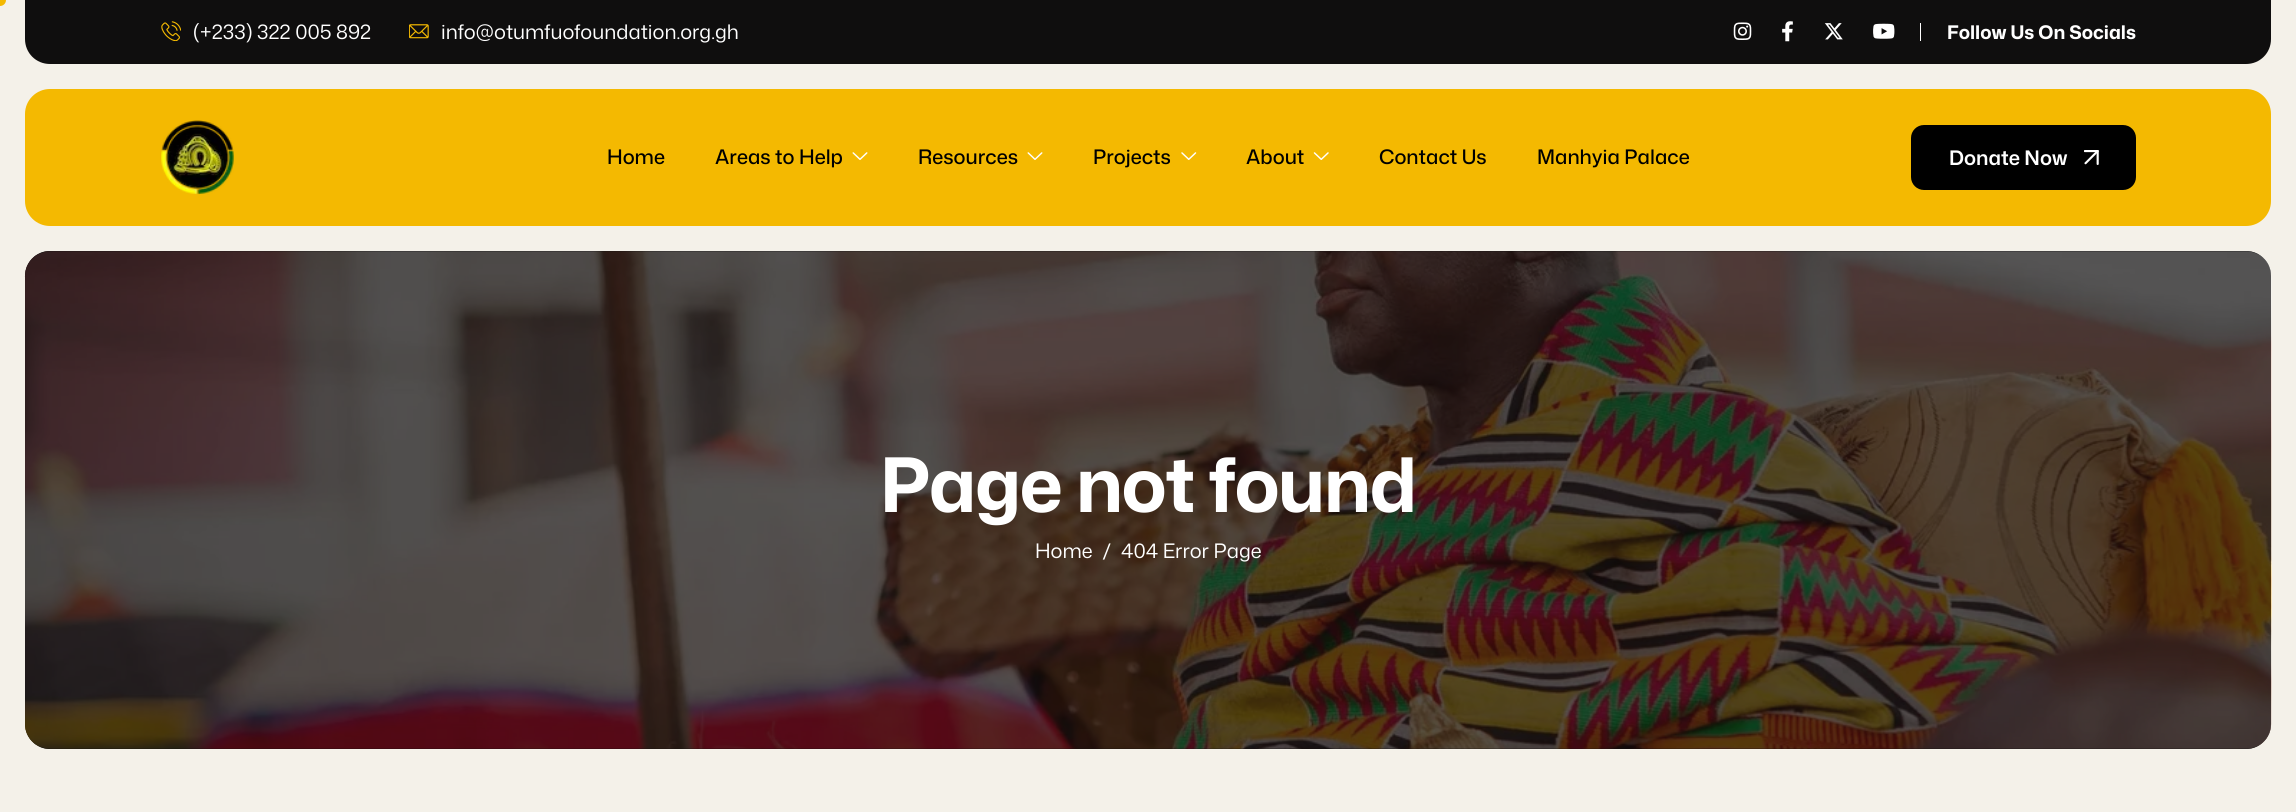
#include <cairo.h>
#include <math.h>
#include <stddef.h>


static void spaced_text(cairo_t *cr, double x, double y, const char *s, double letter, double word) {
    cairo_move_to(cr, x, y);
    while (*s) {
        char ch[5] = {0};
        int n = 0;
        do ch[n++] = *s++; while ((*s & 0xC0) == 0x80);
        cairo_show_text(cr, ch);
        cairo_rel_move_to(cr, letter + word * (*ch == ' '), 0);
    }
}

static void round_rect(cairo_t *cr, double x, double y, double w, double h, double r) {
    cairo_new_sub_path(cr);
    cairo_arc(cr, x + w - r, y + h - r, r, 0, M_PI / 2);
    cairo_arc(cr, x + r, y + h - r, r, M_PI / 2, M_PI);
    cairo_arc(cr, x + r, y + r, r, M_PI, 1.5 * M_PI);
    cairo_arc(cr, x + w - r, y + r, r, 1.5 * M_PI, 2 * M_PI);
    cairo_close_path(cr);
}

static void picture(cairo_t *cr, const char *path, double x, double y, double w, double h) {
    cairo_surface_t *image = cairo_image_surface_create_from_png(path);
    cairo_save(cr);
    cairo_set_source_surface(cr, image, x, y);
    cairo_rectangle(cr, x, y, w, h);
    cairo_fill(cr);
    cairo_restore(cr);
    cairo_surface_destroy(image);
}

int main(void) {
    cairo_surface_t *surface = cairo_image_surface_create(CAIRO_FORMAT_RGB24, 2296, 812);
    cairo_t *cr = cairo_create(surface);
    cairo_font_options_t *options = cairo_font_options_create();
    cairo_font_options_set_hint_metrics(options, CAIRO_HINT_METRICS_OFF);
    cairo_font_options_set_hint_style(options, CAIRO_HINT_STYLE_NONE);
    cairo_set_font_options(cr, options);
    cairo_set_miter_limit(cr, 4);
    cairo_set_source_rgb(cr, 0.957, 0.945, 0.914);
    cairo_paint(cr);
    cairo_set_source_rgb(cr, 0.957, 0.725, 0.004);
    cairo_arc(cr, 0, 0, 6, 0, 2 * M_PI);
    cairo_fill(cr);
    cairo_set_source_rgb(cr, 0.059, 0.055, 0.055);
    cairo_new_path(cr);
    cairo_move_to(cr, 25, 0);
    cairo_line_to(cr, 2271, 0);
    cairo_line_to(cr, 2271, 39);
    cairo_curve_to(cr, 2271, 53, 2260, 64, 2246, 64);
    cairo_line_to(cr, 50, 64);
    cairo_curve_to(cr, 36, 64, 25, 53, 25, 39);
    cairo_close_path(cr);
    cairo_fill(cr);
    picture(cr, "img1.png", 161, 21, 20, 20);
    cairo_select_font_face(cr, "Mona Sans", CAIRO_FONT_SLANT_NORMAL, CAIRO_FONT_WEIGHT_NORMAL);
    cairo_set_font_size(cr, 20);
    cairo_set_source_rgb(cr, 1, 1, 1);
    cairo_move_to(cr, 193, 39);
    cairo_show_text(cr, "(+233) 322 005 892");
    picture(cr, "img2.png", 409, 24, 20, 15);
    cairo_move_to(cr, 441, 39);
    cairo_show_text(cr, "info@otumfuofoundation.org.gh");
    picture(cr, "img3.png", 1733, 22, 19, 18);
    picture(cr, "img4.png", 1782, 21, 11, 21);
    picture(cr, "img5.png", 1824, 23, 19, 17);
    picture(cr, "img6.png", 1873, 23, 22, 16);
    cairo_rectangle(cr, 1920, 23, 1, 18);
    cairo_fill(cr);
    cairo_select_font_face(cr, "Mona Sans", CAIRO_FONT_SLANT_NORMAL, CAIRO_FONT_WEIGHT_BOLD);
    cairo_set_font_size(cr, 18.75);
    cairo_move_to(cr, 1947, 39);
    cairo_show_text(cr, "Follow Us On Socials");
    cairo_set_source_rgb(cr, 0.957, 0.725, 0.004);
    round_rect(cr, 25, 89, 2246, 137, 25);
    cairo_fill(cr);
    picture(cr, "img7.png", 161, 120, 73, 75);
    cairo_select_font_face(cr, "Mona Sans Medium", CAIRO_FONT_SLANT_NORMAL, CAIRO_FONT_WEIGHT_NORMAL);
    cairo_set_font_size(cr, 20);
    cairo_set_source_rgb(cr, 0, 0, 0);
    cairo_move_to(cr, 607, 164);
    cairo_show_text(cr, "Home");
    cairo_move_to(cr, 715, 164);
    cairo_show_text(cr, "Areas to Help");
    picture(cr, "img8.png", 852, 152, 16, 8);
    cairo_move_to(cr, 918, 164);
    cairo_show_text(cr, "Resources");
    picture(cr, "img8.png", 1027, 152, 16, 8);
    cairo_move_to(cr, 1093, 164);
    cairo_show_text(cr, "Projects");
    picture(cr, "img9.png", 1181, 152, 16, 8);
    cairo_move_to(cr, 1246, 164);
    cairo_show_text(cr, "About");
    picture(cr, "img10.png", 1313, 152, 16, 8);
    cairo_move_to(cr, 1379, 164);
    cairo_show_text(cr, "Contact Us");
    cairo_move_to(cr, 1537, 164);
    cairo_show_text(cr, "Manhyia Palace");
    round_rect(cr, 1911, 125, 225, 65, 13);
    cairo_fill(cr);
    cairo_select_font_face(cr, "Mona Sans SemiBold", CAIRO_FONT_SLANT_NORMAL, CAIRO_FONT_WEIGHT_NORMAL);
    cairo_set_source_rgb(cr, 1, 1, 1);
    cairo_move_to(cr, 1949, 165);
    cairo_show_text(cr, "Donate Now");
    picture(cr, "img11.png", 2084, 150, 15, 15);
    cairo_set_source_rgb(cr, 0.059, 0.055, 0.055);
    round_rect(cr, 25, 251, 2246, 498, 25);
    cairo_fill(cr);
    picture(cr, "img12.png", 24, 251, 2248, 498);
    cairo_set_source_rgba(cr, 0.059, 0.055, 0.055, 0.7);
    round_rect(cr, 25, 251, 2246, 498, 25);
    cairo_fill(cr);
    cairo_select_font_face(cr, "Mona Sans", CAIRO_FONT_SLANT_NORMAL, CAIRO_FONT_WEIGHT_BOLD);
    cairo_set_font_size(cr, 75);
    cairo_set_source_rgb(cr, 1, 1, 1);
    spaced_text(cr, 880, 512, "Page not found", -1.5, 0);
    cairo_select_font_face(cr, "Mona Sans", CAIRO_FONT_SLANT_NORMAL, CAIRO_FONT_WEIGHT_NORMAL);
    cairo_set_font_size(cr, 20);
    cairo_move_to(cr, 1035, 558);
    cairo_show_text(cr, "Home");
    cairo_move_to(cr, 1103, 558);
    cairo_show_text(cr, "/");
    cairo_move_to(cr, 1121, 558);
    cairo_show_text(cr, "404 Error Page");
    cairo_surface_write_to_png(surface, "page.png");
    cairo_font_options_destroy(options);
    cairo_destroy(cr);
    cairo_surface_destroy(surface);
    return 0;
}
